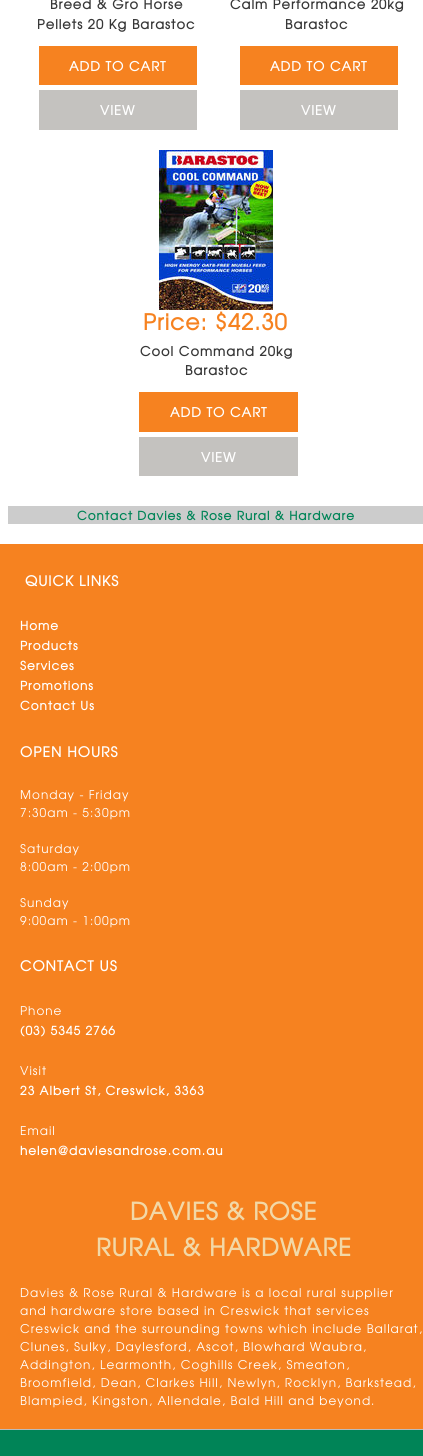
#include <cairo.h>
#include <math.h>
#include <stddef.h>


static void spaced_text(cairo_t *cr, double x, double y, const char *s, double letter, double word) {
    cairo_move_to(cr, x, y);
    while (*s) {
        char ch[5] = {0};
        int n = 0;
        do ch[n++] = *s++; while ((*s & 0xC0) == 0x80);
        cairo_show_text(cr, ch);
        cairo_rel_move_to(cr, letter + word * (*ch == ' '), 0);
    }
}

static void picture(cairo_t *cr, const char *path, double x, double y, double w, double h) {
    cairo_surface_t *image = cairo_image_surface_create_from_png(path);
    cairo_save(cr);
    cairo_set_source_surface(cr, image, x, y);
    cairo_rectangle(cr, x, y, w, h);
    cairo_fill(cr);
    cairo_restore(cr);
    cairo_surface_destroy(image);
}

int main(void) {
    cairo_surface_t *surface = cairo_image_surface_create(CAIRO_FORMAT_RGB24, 423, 1456);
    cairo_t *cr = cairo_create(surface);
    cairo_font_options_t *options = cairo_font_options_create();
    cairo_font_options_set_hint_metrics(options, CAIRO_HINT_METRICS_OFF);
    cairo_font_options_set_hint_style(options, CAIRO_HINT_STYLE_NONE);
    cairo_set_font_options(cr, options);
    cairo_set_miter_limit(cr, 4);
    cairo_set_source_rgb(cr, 1, 1, 1);
    cairo_paint(cr);
    cairo_select_font_face(cr, "TeX Gyre Adventor", CAIRO_FONT_SLANT_NORMAL, CAIRO_FONT_WEIGHT_BOLD);
    cairo_set_font_size(cr, 13);
    cairo_set_source_rgb(cr, 0.216, 0.216, 0.216);
    spaced_text(cr, 50, 9, "Breed & Gro Horse", 1, 0);
    spaced_text(cr, 37, 29, "Pellets 20 Kg Barastoc", 1, 0);
    cairo_set_source_rgb(cr, 0.961, 0.51, 0.125);
    cairo_rectangle(cr, 39, 46, 158, 39);
    cairo_fill(cr);
    cairo_set_source_rgb(cr, 1, 1, 1);
    spaced_text(cr, 69, 71, "ADD TO CART", 1, 0);
    cairo_set_source_rgb(cr, 0.769, 0.761, 0.749);
    cairo_rectangle(cr, 39, 90, 158, 40);
    cairo_fill(cr);
    cairo_set_source_rgb(cr, 1, 1, 1);
    spaced_text(cr, 100, 115, "VIEW", 1, 0);
    cairo_set_source_rgb(cr, 0.216, 0.216, 0.216);
    spaced_text(cr, 230, 9, "Calm Performance 20kg", 1, 0);
    spaced_text(cr, 285, 29, "Barastoc", 1, 0);
    cairo_set_source_rgb(cr, 0.961, 0.51, 0.125);
    cairo_rectangle(cr, 240, 46, 158, 39);
    cairo_fill(cr);
    cairo_set_source_rgb(cr, 1, 1, 1);
    spaced_text(cr, 270, 71, "ADD TO CART", 1, 0);
    cairo_set_source_rgb(cr, 0.769, 0.761, 0.749);
    cairo_rectangle(cr, 240, 90, 158, 40);
    cairo_fill(cr);
    cairo_set_source_rgb(cr, 1, 1, 1);
    spaced_text(cr, 301, 115, "VIEW", 1, 0);
    picture(cr, "img1.png", 159, 150, 114, 160);
    cairo_set_font_size(cr, 22);
    cairo_set_source_rgb(cr, 0.961, 0.51, 0.125);
    spaced_text(cr, 143, 330, "Price: $42.30", 1, 0);
    cairo_set_font_size(cr, 13);
    cairo_set_source_rgb(cr, 0.216, 0.216, 0.216);
    spaced_text(cr, 140, 356, "Cool Command 20kg", 1, 0);
    spaced_text(cr, 185, 375, "Barastoc", 1, 0);
    cairo_set_source_rgb(cr, 0.961, 0.51, 0.125);
    cairo_rectangle(cr, 139, 392, 159, 40);
    cairo_fill(cr);
    cairo_set_source_rgb(cr, 1, 1, 1);
    spaced_text(cr, 170, 417, "ADD TO CART", 1, 0);
    cairo_set_source_rgb(cr, 0.769, 0.761, 0.749);
    cairo_rectangle(cr, 139, 437, 159, 39);
    cairo_fill(cr);
    cairo_set_source_rgb(cr, 1, 1, 1);
    spaced_text(cr, 201, 462, "VIEW", 1, 0);
    cairo_set_source_rgb(cr, 0.8, 0.8, 0.8);
    cairo_rectangle(cr, 8, 506, 415, 18);
    cairo_fill(cr);
    cairo_set_font_size(cr, 12);
    cairo_set_source_rgb(cr, 0, 0.518, 0.341);
    spaced_text(cr, 77, 520, "Contact Davies & Rose Rural & Hardware", 1, 0);
    cairo_set_source_rgb(cr, 0.961, 0.51, 0.125);
    cairo_rectangle(cr, 0, 544, 423, 885);
    cairo_fill(cr);
    cairo_set_font_size(cr, 14);
    cairo_set_source_rgb(cr, 1, 1, 1);
    spaced_text(cr, 25, 586, "QUICK LINKS", 1, 0);
    cairo_set_font_size(cr, 12);
    spaced_text(cr, 20, 630, "Home", 1, 0);
    spaced_text(cr, 20, 650, "Products", 1, 0);
    spaced_text(cr, 20, 670, "Services", 1, 0);
    spaced_text(cr, 20, 690, "Promotions", 1, 0);
    spaced_text(cr, 20, 710, "Contact Us", 1, 0);
    cairo_set_font_size(cr, 14);
    spaced_text(cr, 20, 757, "OPEN HOURS", 1, 0);
    cairo_select_font_face(cr, "TeX Gyre Adventor", CAIRO_FONT_SLANT_NORMAL, CAIRO_FONT_WEIGHT_NORMAL);
    cairo_set_font_size(cr, 12);
    spaced_text(cr, 20, 799, "Monday - Friday", 1, 0);
    spaced_text(cr, 20, 817, "7:30am - 5:30pm", 1, 0);
    spaced_text(cr, 20, 853, "Saturday", 1, 0);
    spaced_text(cr, 20, 871, "8:00am - 2:00pm", 1, 0);
    spaced_text(cr, 20, 907, "Sunday", 1, 0);
    spaced_text(cr, 20, 925, "9:00am - 1:00pm", 1, 0);
    cairo_select_font_face(cr, "TeX Gyre Adventor", CAIRO_FONT_SLANT_NORMAL, CAIRO_FONT_WEIGHT_BOLD);
    cairo_set_font_size(cr, 14);
    spaced_text(cr, 20, 971, "CONTACT US", 1, 0);
    cairo_select_font_face(cr, "TeX Gyre Adventor", CAIRO_FONT_SLANT_NORMAL, CAIRO_FONT_WEIGHT_NORMAL);
    cairo_set_font_size(cr, 12);
    spaced_text(cr, 20, 1015, "Phone", 1, 0);
    cairo_select_font_face(cr, "TeX Gyre Adventor", CAIRO_FONT_SLANT_NORMAL, CAIRO_FONT_WEIGHT_BOLD);
    spaced_text(cr, 20, 1035, "(03) 5345 2766", 1, 0);
    cairo_select_font_face(cr, "TeX Gyre Adventor", CAIRO_FONT_SLANT_NORMAL, CAIRO_FONT_WEIGHT_NORMAL);
    spaced_text(cr, 20, 1075, "Visit", 1, 0);
    cairo_select_font_face(cr, "TeX Gyre Adventor", CAIRO_FONT_SLANT_NORMAL, CAIRO_FONT_WEIGHT_BOLD);
    spaced_text(cr, 20, 1095, "23 Albert St, Creswick, 3363", 1, 0);
    cairo_select_font_face(cr, "TeX Gyre Adventor", CAIRO_FONT_SLANT_NORMAL, CAIRO_FONT_WEIGHT_NORMAL);
    spaced_text(cr, 20, 1135, "Email", 1, 0);
    cairo_select_font_face(cr, "TeX Gyre Adventor", CAIRO_FONT_SLANT_NORMAL, CAIRO_FONT_WEIGHT_BOLD);
    spaced_text(cr, 20, 1155, "helen@daviesandrose.com.au", 1, 0);
    cairo_set_font_size(cr, 24);
    cairo_set_source_rgb(cr, 0.949, 0.847, 0.655);
    spaced_text(cr, 130, 1220, "DAVIES & ROSE", 1, 0);
    spaced_text(cr, 96, 1256, "RURAL & HARDWARE", 1, 0);
    cairo_select_font_face(cr, "TeX Gyre Adventor", CAIRO_FONT_SLANT_NORMAL, CAIRO_FONT_WEIGHT_NORMAL);
    cairo_set_font_size(cr, 12);
    cairo_set_source_rgb(cr, 1, 1, 1);
    spaced_text(cr, 20, 1297, "Davies & Rose Rural & Hardware is a local rural supplier", 1, 0);
    spaced_text(cr, 20, 1315, "and hardware store based in Creswick that services", 1, 0);
    spaced_text(cr, 20, 1333, "Creswick and the surrounding towns which include Ballarat,", 1, 0);
    spaced_text(cr, 20, 1351, "Clunes, Sulky, Daylesford, Ascot, Blowhard Waubra,", 1, 0);
    spaced_text(cr, 20, 1369, "Addington, Learmonth, Coghills Creek, Smeaton,", 1, 0);
    spaced_text(cr, 20, 1387, "Broomfield, Dean, Clarkes Hill, Newlyn, Rocklyn, Barkstead,", 1, 0);
    spaced_text(cr, 20, 1405, "Blampied, Kingston, Allendale, Bald Hill and beyond.", 1, 0);
    cairo_set_source_rgb(cr, 0, 0.518, 0.341);
    cairo_rectangle(cr, 0, 1430, 423, 26);
    cairo_fill(cr);
    cairo_set_source_rgb(cr, 0.733, 0.733, 0.733);
    cairo_rectangle(cr, 0, 1429, 423, 1);
    cairo_fill(cr);
    cairo_surface_write_to_png(surface, "page.png");
    cairo_font_options_destroy(options);
    cairo_destroy(cr);
    cairo_surface_destroy(surface);
    return 0;
}
